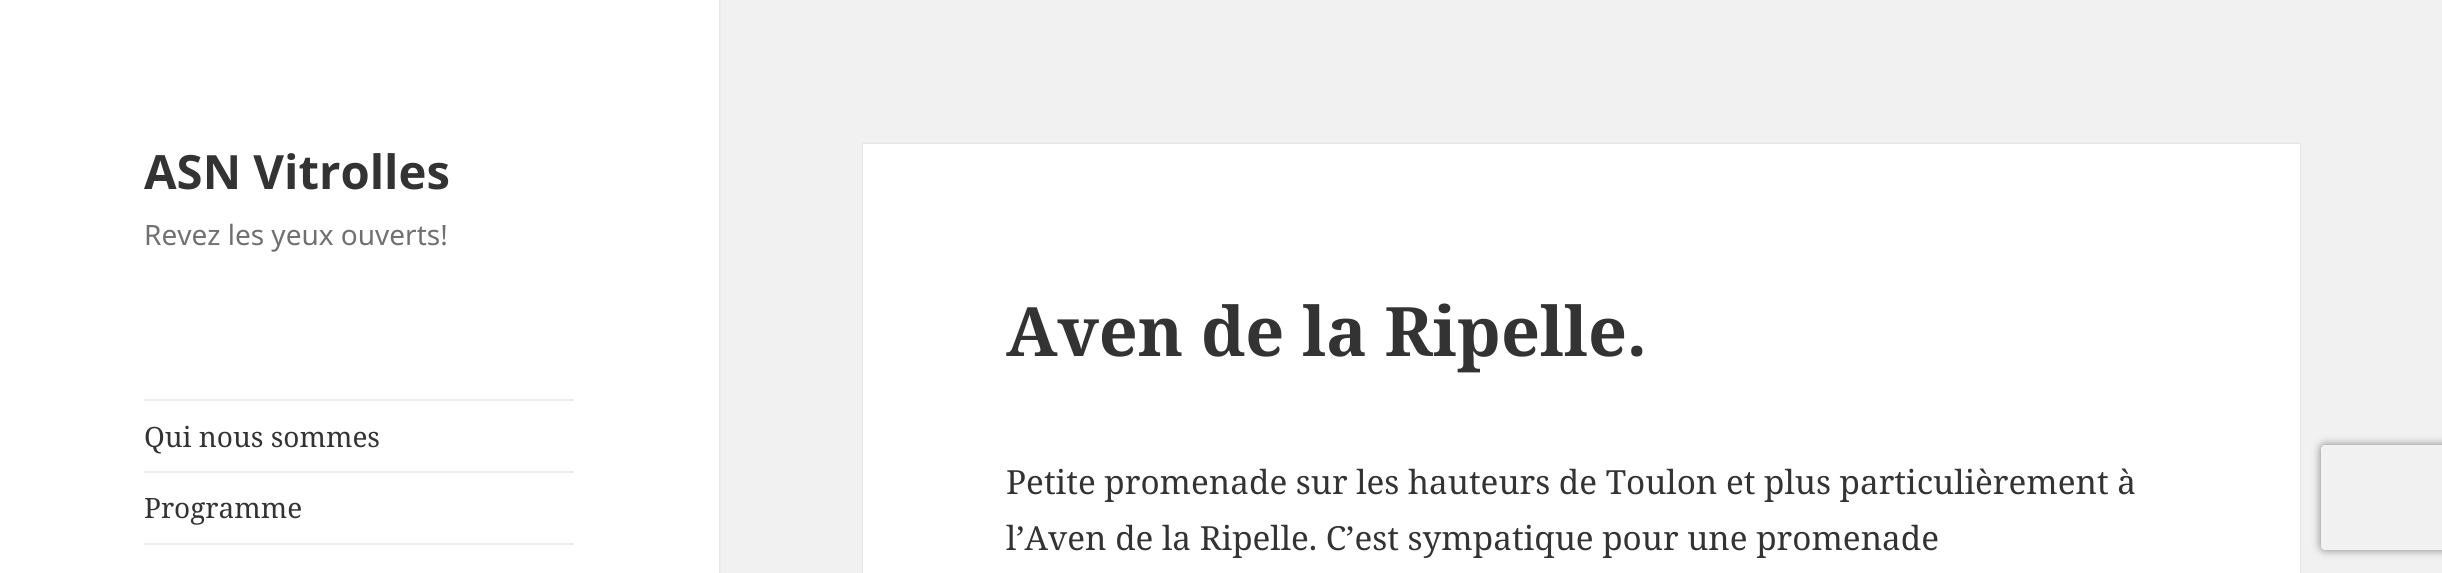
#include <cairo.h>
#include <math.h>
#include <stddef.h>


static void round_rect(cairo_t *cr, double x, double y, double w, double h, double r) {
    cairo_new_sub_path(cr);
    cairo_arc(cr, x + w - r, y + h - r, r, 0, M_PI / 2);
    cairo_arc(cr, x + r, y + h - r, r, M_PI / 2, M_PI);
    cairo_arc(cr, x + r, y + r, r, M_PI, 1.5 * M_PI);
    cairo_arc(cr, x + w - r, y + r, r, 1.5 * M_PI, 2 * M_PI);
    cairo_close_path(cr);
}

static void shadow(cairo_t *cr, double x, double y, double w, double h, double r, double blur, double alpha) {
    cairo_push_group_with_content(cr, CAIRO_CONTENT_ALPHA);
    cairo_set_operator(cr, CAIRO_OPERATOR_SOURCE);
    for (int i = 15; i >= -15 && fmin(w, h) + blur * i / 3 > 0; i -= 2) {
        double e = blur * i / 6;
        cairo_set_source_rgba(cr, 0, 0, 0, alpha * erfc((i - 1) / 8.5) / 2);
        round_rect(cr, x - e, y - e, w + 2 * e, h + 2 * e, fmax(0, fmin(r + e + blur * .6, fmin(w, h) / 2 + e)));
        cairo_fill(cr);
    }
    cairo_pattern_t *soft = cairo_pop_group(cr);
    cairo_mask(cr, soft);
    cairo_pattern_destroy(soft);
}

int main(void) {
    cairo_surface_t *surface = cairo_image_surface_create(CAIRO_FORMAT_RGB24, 2442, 573);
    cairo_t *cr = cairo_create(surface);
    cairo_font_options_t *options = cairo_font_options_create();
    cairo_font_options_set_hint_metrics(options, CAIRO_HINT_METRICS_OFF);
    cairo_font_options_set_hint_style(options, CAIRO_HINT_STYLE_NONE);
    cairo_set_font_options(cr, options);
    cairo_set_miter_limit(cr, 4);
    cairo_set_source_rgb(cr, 0.945, 0.945, 0.945);
    cairo_paint(cr);
    cairo_set_source_rgb(cr, 0, 0, 0);
    shadow(cr, 0, 0, 719, 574, 0, 1, 0.15);
    cairo_set_source_rgb(cr, 1, 1, 1);
    cairo_rectangle(cr, 0, 0, 719, 573);
    cairo_fill(cr);
    cairo_select_font_face(cr, "Noto Sans", CAIRO_FONT_SLANT_NORMAL, CAIRO_FONT_WEIGHT_BOLD);
    cairo_set_font_size(cr, 47.25);
    cairo_set_source_rgb(cr, 0.2, 0.2, 0.2);
    cairo_move_to(cr, 144, 189);
    cairo_show_text(cr, "ASN Vitrolles");
    cairo_select_font_face(cr, "Noto Sans", CAIRO_FONT_SLANT_NORMAL, CAIRO_FONT_WEIGHT_NORMAL);
    cairo_set_font_size(cr, 28);
    cairo_set_source_rgb(cr, 0.439, 0.439, 0.439);
    cairo_move_to(cr, 144, 245);
    cairo_show_text(cr, "Revez les yeux ouverts!");
    cairo_set_source_rgb(cr, 0.922, 0.922, 0.922);
    cairo_rectangle(cr, 144, 399, 430, 2);
    cairo_fill(cr);
    cairo_select_font_face(cr, "Noto Serif", CAIRO_FONT_SLANT_NORMAL, CAIRO_FONT_WEIGHT_NORMAL);
    cairo_set_source_rgb(cr, 0.2, 0.2, 0.2);
    cairo_move_to(cr, 144, 447);
    cairo_show_text(cr, "Qui nous sommes");
    cairo_set_source_rgb(cr, 0.922, 0.922, 0.922);
    cairo_rectangle(cr, 144, 471, 430, 2);
    cairo_fill(cr);
    cairo_set_source_rgb(cr, 0.2, 0.2, 0.2);
    cairo_move_to(cr, 144, 518);
    cairo_show_text(cr, "Programme");
    cairo_set_source_rgb(cr, 0.922, 0.922, 0.922);
    cairo_rectangle(cr, 144, 543, 430, 2);
    cairo_fill(cr);
    cairo_set_source_rgb(cr, 0, 0, 0);
    shadow(cr, 863, 144, 1437, 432, 0, 1, 0.15);
    cairo_set_source_rgb(cr, 1, 1, 1);
    cairo_rectangle(cr, 863, 144, 1437, 429);
    cairo_fill(cr);
    cairo_select_font_face(cr, "Noto Serif", CAIRO_FONT_SLANT_NORMAL, CAIRO_FONT_WEIGHT_BOLD);
    cairo_set_font_size(cr, 68.25);
    cairo_set_source_rgb(cr, 0.2, 0.2, 0.2);
    cairo_move_to(cr, 1006, 356);
    cairo_show_text(cr, "Aven de la Ripelle.");
    cairo_select_font_face(cr, "Noto Serif", CAIRO_FONT_SLANT_NORMAL, CAIRO_FONT_WEIGHT_NORMAL);
    cairo_set_font_size(cr, 33.25);
    cairo_move_to(cr, 1006, 494);
    cairo_show_text(cr, "Petite promenade sur les hauteurs de Toulon et plus particulièrement à");
    cairo_move_to(cr, 1006, 550);
    cairo_show_text(cr, "l’Aven de la Ripelle. C’est sympatique pour une promenade");
    cairo_save(cr);
    cairo_set_fill_rule(cr, CAIRO_FILL_RULE_EVEN_ODD);
    cairo_new_path(cr);
    cairo_move_to(cr, 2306, 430);
    cairo_line_to(cr, 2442, 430);
    cairo_line_to(cr, 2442, 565);
    cairo_line_to(cr, 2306, 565);
    cairo_close_path(cr);
    cairo_move_to(cr, 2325, 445);
    cairo_line_to(cr, 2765, 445);
    cairo_curve_to(cr, 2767, 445, 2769, 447, 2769, 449);
    cairo_line_to(cr, 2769, 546);
    cairo_curve_to(cr, 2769, 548, 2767, 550, 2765, 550);
    cairo_line_to(cr, 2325, 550);
    cairo_curve_to(cr, 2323, 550, 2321, 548, 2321, 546);
    cairo_line_to(cr, 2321, 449);
    cairo_curve_to(cr, 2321, 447, 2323, 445, 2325, 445);
    cairo_close_path(cr);
    cairo_clip(cr);
    cairo_set_source_rgb(cr, 0.502, 0.502, 0.502);
    shadow(cr, 2321, 445, 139, 105, 4, 4.5, 1);
    cairo_restore(cr);
    cairo_surface_write_to_png(surface, "page.png");
    cairo_font_options_destroy(options);
    cairo_destroy(cr);
    cairo_surface_destroy(surface);
    return 0;
}
